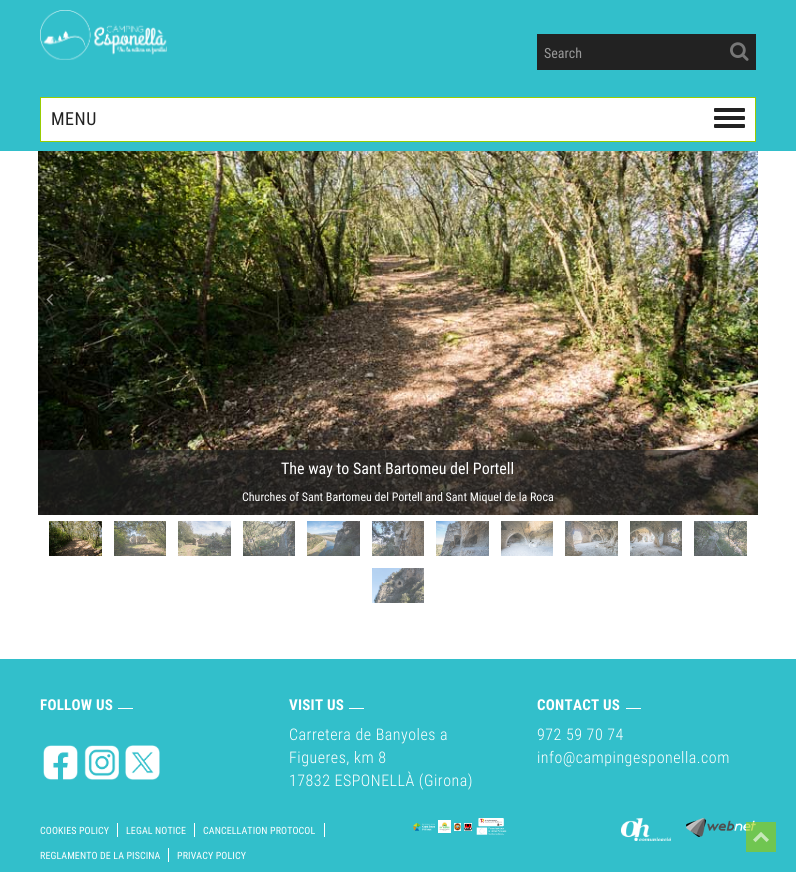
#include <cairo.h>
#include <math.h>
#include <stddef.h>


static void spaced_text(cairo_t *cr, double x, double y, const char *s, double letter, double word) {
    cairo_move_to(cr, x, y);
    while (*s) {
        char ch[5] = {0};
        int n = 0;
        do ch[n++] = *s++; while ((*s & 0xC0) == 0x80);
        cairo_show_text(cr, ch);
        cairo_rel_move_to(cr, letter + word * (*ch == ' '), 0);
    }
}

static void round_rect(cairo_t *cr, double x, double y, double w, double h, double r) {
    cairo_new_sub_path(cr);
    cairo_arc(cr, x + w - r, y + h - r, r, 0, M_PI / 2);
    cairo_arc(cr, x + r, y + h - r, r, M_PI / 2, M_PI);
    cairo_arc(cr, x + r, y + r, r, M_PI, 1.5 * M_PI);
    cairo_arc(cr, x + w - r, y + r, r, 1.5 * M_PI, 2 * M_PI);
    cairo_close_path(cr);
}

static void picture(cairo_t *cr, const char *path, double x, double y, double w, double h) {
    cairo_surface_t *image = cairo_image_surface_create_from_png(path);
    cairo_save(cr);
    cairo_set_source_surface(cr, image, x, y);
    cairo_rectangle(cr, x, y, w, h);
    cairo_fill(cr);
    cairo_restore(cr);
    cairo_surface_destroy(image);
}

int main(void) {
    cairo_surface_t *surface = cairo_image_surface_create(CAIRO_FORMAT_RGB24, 796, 872);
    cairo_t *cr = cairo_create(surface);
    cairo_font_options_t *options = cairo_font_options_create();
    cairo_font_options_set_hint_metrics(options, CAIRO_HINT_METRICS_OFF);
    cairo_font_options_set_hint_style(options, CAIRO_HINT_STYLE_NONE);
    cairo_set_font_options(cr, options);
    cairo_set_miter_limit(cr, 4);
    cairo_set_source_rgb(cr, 1, 1, 1);
    cairo_paint(cr);
    cairo_set_source_rgb(cr, 0.196, 0.749, 0.796);
    cairo_rectangle(cr, 0, 0, 796, 151);
    cairo_fill(cr);
    picture(cr, "img1.png", 40, 10, 127, 50);
    cairo_set_source_rgb(cr, 0.133, 0.133, 0.133);
    cairo_rectangle(cr, 537, 34, 219, 36);
    cairo_fill(cr);
    cairo_select_font_face(cr, "Roboto Condensed", CAIRO_FONT_SLANT_NORMAL, CAIRO_FONT_WEIGHT_NORMAL);
    cairo_set_font_size(cr, 14);
    cairo_set_source_rgb(cr, 0.6, 0.6, 0.6);
    cairo_move_to(cr, 544, 58);
    cairo_show_text(cr, "Search");
    picture(cr, "img2.png", 730, 42, 19, 19);
    cairo_set_source_rgb(cr, 1, 1, 1);
    cairo_rectangle(cr, 40.5, 97.5, 715, 44);
    cairo_fill_preserve(cr);
    cairo_set_source_rgb(cr, 0.6, 0.8, 0);
    cairo_set_line_width(cr, 1);
    cairo_stroke(cr);
    cairo_set_font_size(cr, 18);
    cairo_set_source_rgb(cr, 0.133, 0.133, 0.133);
    spaced_text(cr, 51, 125, "MENU", 0.5, 0);
    round_rect(cr, 714, 108, 31, 4, 1);
    cairo_fill(cr);
    round_rect(cr, 714, 116, 31, 4, 1);
    cairo_fill(cr);
    round_rect(cr, 714, 124, 31, 4, 1);
    cairo_fill(cr);
    picture(cr, "img5.png", 38, 151, 720, 364);
    picture(cr, "img3.png", 46, 294, 7, 11);
    picture(cr, "img4.png", 743, 294, 7, 11);
    cairo_set_source_rgba(cr, 0.133, 0.133, 0.133, 0.65);
    cairo_rectangle(cr, 38, 450, 720, 65);
    cairo_fill(cr);
    cairo_set_font_size(cr, 16);
    cairo_set_source_rgb(cr, 1, 1, 1);
    cairo_move_to(cr, 281, 474);
    cairo_show_text(cr, "The way to Sant Bartomeu del Portell");
    cairo_set_font_size(cr, 12);
    cairo_move_to(cr, 242, 501);
    cairo_show_text(cr, "Churches of Sant Bartomeu del Portell and Sant Miquel de la Roca");
    picture(cr, "img6.png", 49, 521, 53, 35);
    picture(cr, "img7.png", 114, 521, 52, 35);
    picture(cr, "img8.png", 178, 521, 53, 35);
    picture(cr, "img9.png", 243, 521, 52, 35);
    picture(cr, "img10.png", 307, 521, 53, 35);
    picture(cr, "img11.png", 372, 521, 52, 35);
    picture(cr, "img12.png", 436, 521, 53, 35);
    picture(cr, "img13.png", 501, 521, 52, 35);
    picture(cr, "img14.png", 565, 521, 53, 35);
    picture(cr, "img15.png", 630, 521, 52, 35);
    picture(cr, "img16.png", 694, 521, 53, 35);
    picture(cr, "img17.png", 372, 568, 52, 35);
    cairo_set_source_rgb(cr, 0.196, 0.749, 0.796);
    cairo_rectangle(cr, 0, 659, 796, 213);
    cairo_fill(cr);
    cairo_select_font_face(cr, "Roboto Condensed", CAIRO_FONT_SLANT_NORMAL, CAIRO_FONT_WEIGHT_BOLD);
    cairo_set_font_size(cr, 15);
    cairo_set_source_rgb(cr, 1, 1, 1);
    spaced_text(cr, 40, 710, "FOLLOW US", 0.25, 0);
    cairo_rectangle(cr, 118, 708, 15, 1);
    cairo_fill(cr);
    picture(cr, "img18.png", 43, 745, 35, 35);
    picture(cr, "img19.png", 84, 745, 35, 35);
    picture(cr, "img20.png", 125, 745, 35, 35);
    spaced_text(cr, 289, 710, "VISIT US", 0.25, 0);
    cairo_rectangle(cr, 349, 708, 15, 1);
    cairo_fill(cr);
    cairo_select_font_face(cr, "Roboto Condensed Light", CAIRO_FONT_SLANT_NORMAL, CAIRO_FONT_WEIGHT_NORMAL);
    cairo_set_font_size(cr, 16);
    spaced_text(cr, 289, 740, "Carretera de Banyoles a", 0.5, 0);
    spaced_text(cr, 289, 763, "Figueres, km 8", 0.5, 0);
    spaced_text(cr, 289, 786, "17832 ESPONELLÀ (Girona)", 0.5, 0);
    cairo_select_font_face(cr, "Roboto Condensed", CAIRO_FONT_SLANT_NORMAL, CAIRO_FONT_WEIGHT_BOLD);
    cairo_set_font_size(cr, 15);
    spaced_text(cr, 537, 710, "CONTACT US", 0.25, 0);
    cairo_rectangle(cr, 626, 708, 15, 1);
    cairo_fill(cr);
    cairo_select_font_face(cr, "Roboto Condensed Light", CAIRO_FONT_SLANT_NORMAL, CAIRO_FONT_WEIGHT_NORMAL);
    cairo_set_font_size(cr, 16);
    spaced_text(cr, 537, 740, "972 59 70 74", 0.5, 0);
    spaced_text(cr, 537, 763, "info@campingesponella.com", 0.5, 0);
    cairo_select_font_face(cr, "Roboto Condensed", CAIRO_FONT_SLANT_NORMAL, CAIRO_FONT_WEIGHT_NORMAL);
    cairo_set_font_size(cr, 10);
    spaced_text(cr, 40, 834, "COOKIES POLICY", 0.1, 0);
    cairo_rectangle(cr, 117, 823, 1, 14);
    cairo_fill(cr);
    spaced_text(cr, 126, 834, "LEGAL NOTICE", 0.1, 0);
    cairo_rectangle(cr, 194, 823, 1, 14);
    cairo_fill(cr);
    spaced_text(cr, 203, 834, "CANCELLATION PROTOCOL", 0.1, 0);
    cairo_rectangle(cr, 324, 823, 1, 14);
    cairo_fill(cr);
    spaced_text(cr, 40, 859, "REGLAMENTO DE LA PISCINA", 0.1, 0);
    cairo_rectangle(cr, 168, 848, 1, 14);
    cairo_fill(cr);
    spaced_text(cr, 177, 859, "PRIVACY POLICY", 0.1, 0);
    picture(cr, "img21.png", 413, 823, 22, 8);
    picture(cr, "img22.png", 438, 820, 13, 13);
    picture(cr, "img23.png", 454, 823, 7, 8);
    picture(cr, "img24.png", 464, 823, 8, 8);
    picture(cr, "img25.png", 476, 818, 31, 17);
    picture(cr, "img26.png", 621, 818, 50, 23);
    picture(cr, "img27.png", 686, 818, 70, 19);
    cairo_set_source_rgba(cr, 0.6, 0.8, 0, 0.6);
    cairo_rectangle(cr, 746, 822, 30, 30);
    cairo_fill(cr);
    picture(cr, "img28.png", 753, 832, 16, 11);
    cairo_surface_write_to_png(surface, "page.png");
    cairo_font_options_destroy(options);
    cairo_destroy(cr);
    cairo_surface_destroy(surface);
    return 0;
}
